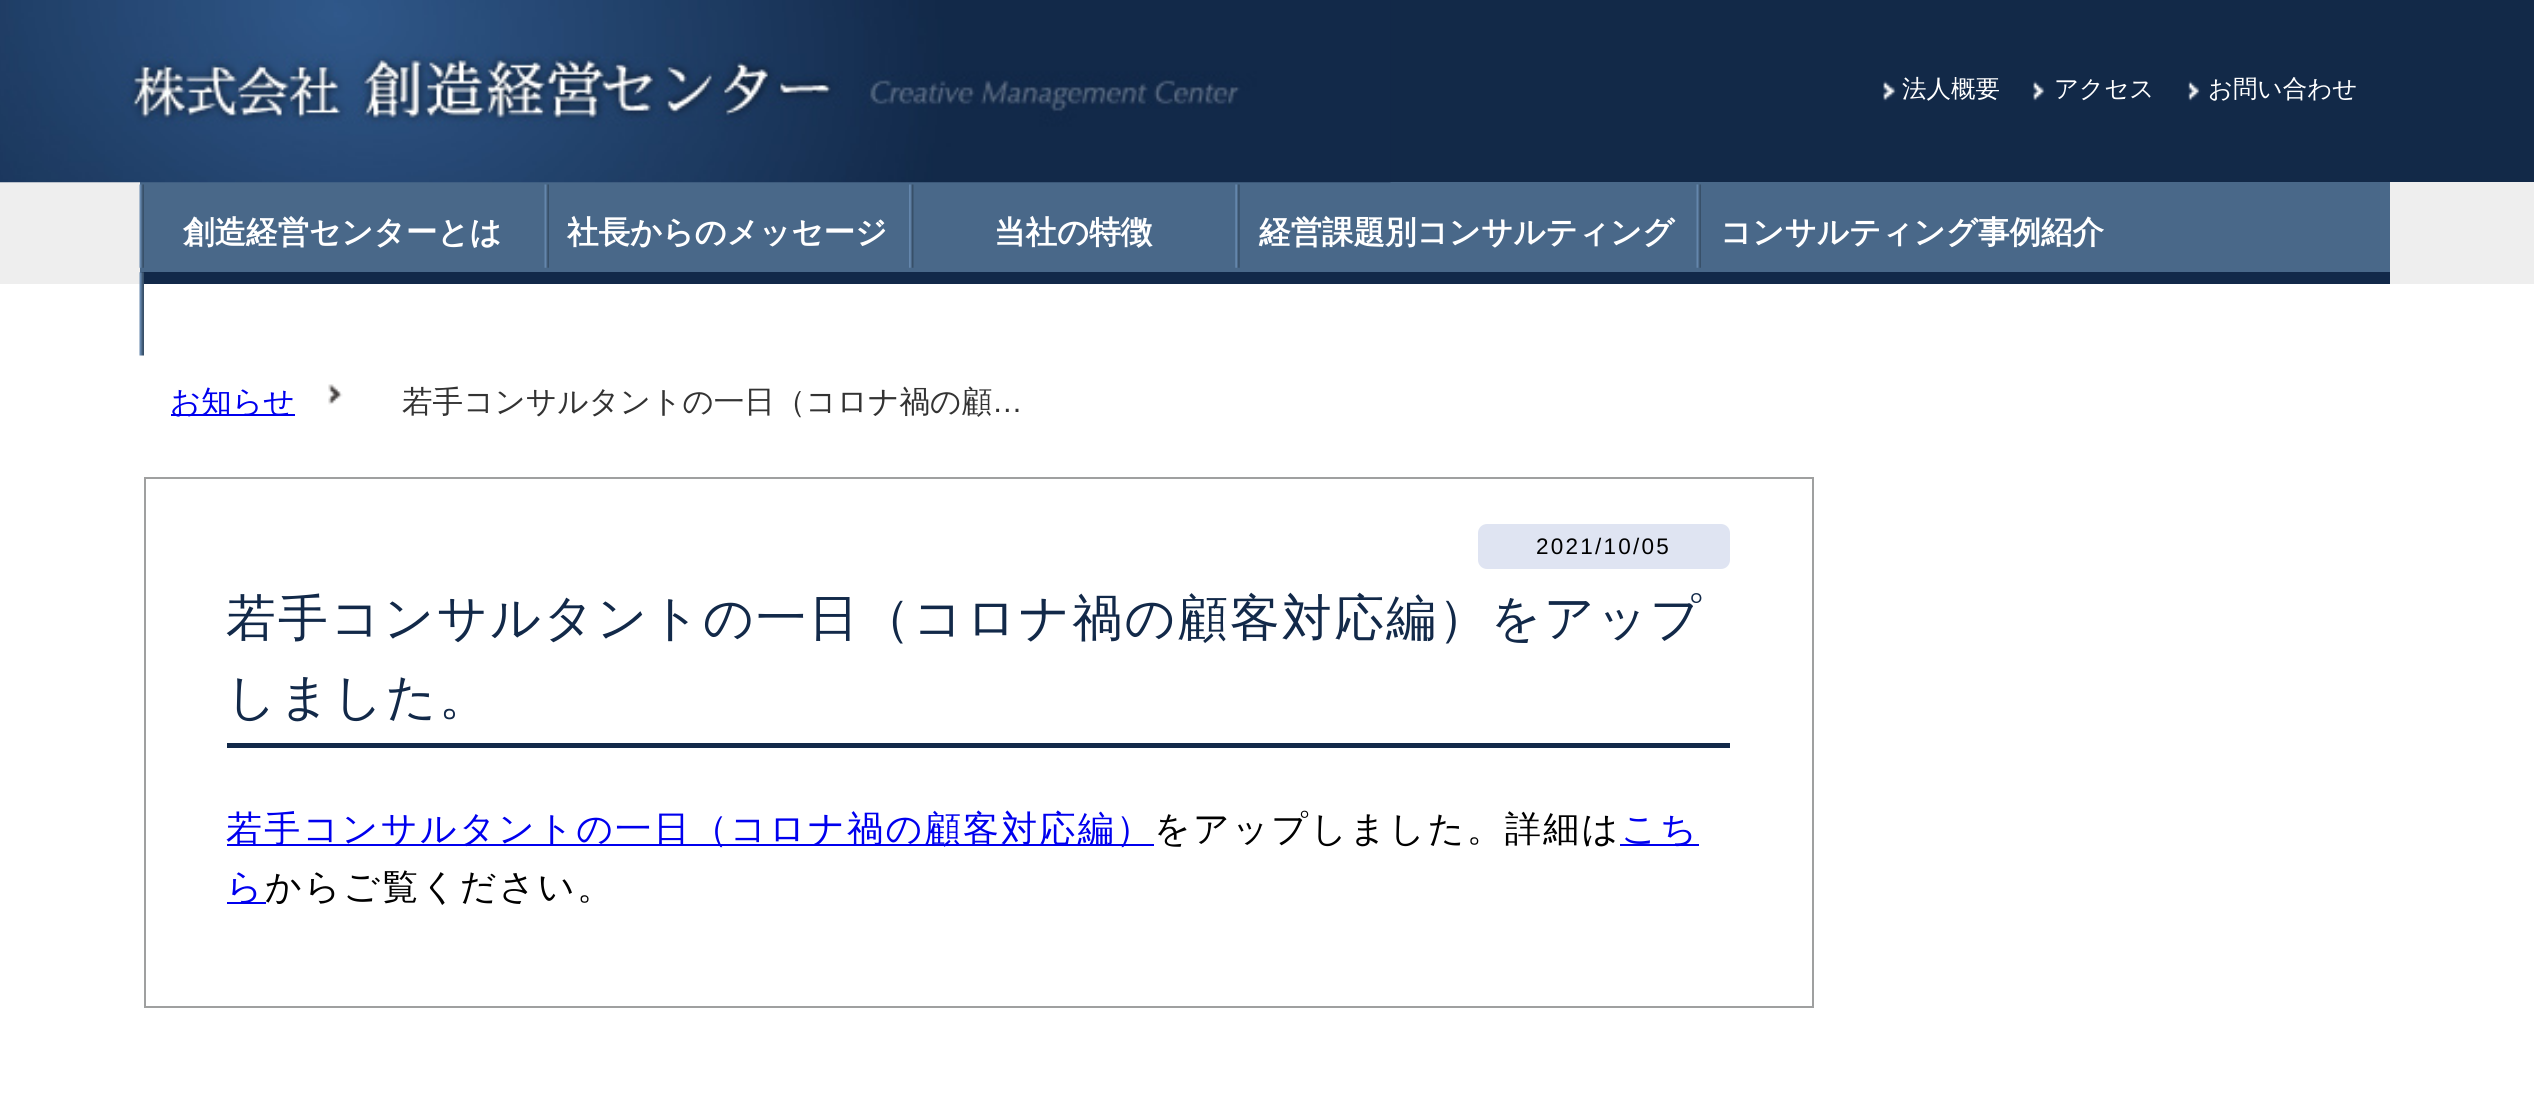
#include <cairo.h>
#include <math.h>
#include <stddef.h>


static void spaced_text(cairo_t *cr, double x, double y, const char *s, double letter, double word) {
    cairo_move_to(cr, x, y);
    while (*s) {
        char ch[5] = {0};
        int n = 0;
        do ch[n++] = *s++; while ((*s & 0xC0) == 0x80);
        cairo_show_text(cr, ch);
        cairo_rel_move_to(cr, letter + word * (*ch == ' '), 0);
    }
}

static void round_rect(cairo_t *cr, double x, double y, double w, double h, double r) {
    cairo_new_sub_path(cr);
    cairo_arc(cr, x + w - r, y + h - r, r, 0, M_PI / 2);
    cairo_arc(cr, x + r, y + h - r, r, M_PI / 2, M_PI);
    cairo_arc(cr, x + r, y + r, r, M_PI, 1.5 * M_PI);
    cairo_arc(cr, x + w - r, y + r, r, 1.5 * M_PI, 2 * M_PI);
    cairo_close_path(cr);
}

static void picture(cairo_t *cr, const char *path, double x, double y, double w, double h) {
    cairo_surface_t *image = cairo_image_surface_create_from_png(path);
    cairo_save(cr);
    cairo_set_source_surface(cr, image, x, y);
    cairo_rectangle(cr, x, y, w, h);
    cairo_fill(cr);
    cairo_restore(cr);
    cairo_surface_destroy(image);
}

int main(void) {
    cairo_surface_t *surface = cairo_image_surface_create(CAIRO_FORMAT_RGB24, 2534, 1114);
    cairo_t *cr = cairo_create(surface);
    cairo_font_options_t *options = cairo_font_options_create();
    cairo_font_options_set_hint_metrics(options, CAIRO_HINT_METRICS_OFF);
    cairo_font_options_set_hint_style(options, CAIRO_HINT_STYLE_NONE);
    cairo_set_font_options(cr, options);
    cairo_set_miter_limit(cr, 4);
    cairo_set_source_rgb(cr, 1, 1, 1);
    cairo_paint(cr);
    cairo_set_source_rgb(cr, 0.071, 0.161, 0.282);
    cairo_rectangle(cr, 1390, 0, 1144, 182);
    cairo_fill(cr);
    cairo_set_source_rgb(cr, 0.933, 0.933, 0.933);
    cairo_rectangle(cr, 0, 182, 2534, 102);
    cairo_fill(cr);
    cairo_set_source_rgb(cr, 0.286, 0.408, 0.537);
    cairo_rectangle(cr, 140, 182, 2250, 90);
    cairo_fill(cr);
    picture(cr, "img1.png", 0, 0, 1391, 183);
    picture(cr, "img2.png", 1883, 80, 14, 22);
    cairo_select_font_face(cr, "WenQuanYi Zen Hei Medium", CAIRO_FONT_SLANT_NORMAL, CAIRO_FONT_WEIGHT_NORMAL);
    cairo_set_font_size(cr, 24.5);
    cairo_set_source_rgb(cr, 1, 1, 1);
    cairo_move_to(cr, 1902, 97);
    cairo_show_text(cr, "法人概要");
    picture(cr, "img3.png", 2033, 80, 13, 22);
    cairo_move_to(cr, 2054, 97);
    cairo_show_text(cr, "アクセス");
    picture(cr, "img4.png", 2188, 80, 13, 22);
    cairo_move_to(cr, 2208, 97);
    cairo_show_text(cr, "お問い合わせ");
    cairo_set_source_rgb(cr, 0.071, 0.161, 0.286);
    cairo_rectangle(cr, 140, 272, 2250, 12);
    cairo_fill(cr);
    picture(cr, "img5.png", 139, 184, 5, 84);
    cairo_select_font_face(cr, "WenQuanYi Zen Hei", CAIRO_FONT_SLANT_NORMAL, CAIRO_FONT_WEIGHT_BOLD);
    cairo_set_font_size(cr, 31.5);
    cairo_set_source_rgb(cr, 1, 1, 1);
    cairo_move_to(cr, 183, 243);
    cairo_show_text(cr, "創造経営センターとは");
    picture(cr, "img6.png", 544, 184, 5, 84);
    cairo_move_to(cr, 567, 243);
    cairo_show_text(cr, "社長からのメッセージ");
    picture(cr, "img7.png", 909, 184, 5, 84);
    cairo_move_to(cr, 994, 243);
    cairo_show_text(cr, "当社の特徴");
    picture(cr, "img8.png", 1235, 184, 5, 84);
    cairo_move_to(cr, 1259, 243);
    cairo_show_text(cr, "経営課題別コンサルティング");
    picture(cr, "img6.png", 1696, 184, 5, 84);
    cairo_move_to(cr, 1720, 243);
    cairo_show_text(cr, "コンサルティング事例紹介");
    picture(cr, "img9.png", 139, 272, 5, 84);
    picture(cr, "img10.png", 328, 384, 15, 21);
    cairo_set_source_rgb(cr, 0, 0, 0.933);
    cairo_rectangle(cr, 171, 414, 124, 2);
    cairo_fill(cr);
    cairo_select_font_face(cr, "WenQuanYi Zen Hei Medium", CAIRO_FONT_SLANT_NORMAL, CAIRO_FONT_WEIGHT_NORMAL);
    cairo_set_font_size(cr, 30.6);
    cairo_move_to(cr, 170, 412);
    cairo_show_text(cr, "お知らせ");
    cairo_set_source_rgb(cr, 0.2, 0.2, 0.2);
    cairo_move_to(cr, 402, 412);
    cairo_show_text(cr, "若手コンサルタントの一日（コロナ禍の顧");
    cairo_select_font_face(cr, "Liberation Sans", CAIRO_FONT_SLANT_NORMAL, CAIRO_FONT_WEIGHT_NORMAL);
    cairo_move_to(cr, 992, 412);
    cairo_show_text(cr, "…");
    cairo_rectangle(cr, 145, 478, 1668, 529);
    cairo_set_source_rgb(cr, 0.624, 0.627, 0.627);
    cairo_stroke(cr);
    cairo_set_source_rgb(cr, 0.875, 0.894, 0.949);
    round_rect(cr, 1478, 524, 252, 45, 9);
    cairo_fill(cr);
    cairo_set_font_size(cr, 22.5);
    cairo_set_source_rgb(cr, 0, 0, 0);
    spaced_text(cr, 1536, 554, "2021/10/05", 2.25, 0);
    cairo_set_source_rgb(cr, 0.071, 0.161, 0.286);
    cairo_rectangle(cr, 227, 743, 1503, 5);
    cairo_fill(cr);
    cairo_select_font_face(cr, "WenQuanYi Zen Hei Medium", CAIRO_FONT_SLANT_NORMAL, CAIRO_FONT_WEIGHT_NORMAL);
    cairo_set_font_size(cr, 49.85);
    spaced_text(cr, 226, 635, "若手コンサルタントの一日（コロナ禍の顧客対応編）をアップ", 2.25, 0);
    spaced_text(cr, 226, 714, "しました。", 2.25, 0);
    cairo_set_source_rgb(cr, 0, 0, 0.933);
    cairo_rectangle(cr, 227, 844, 927, 2);
    cairo_fill(cr);
    cairo_set_font_size(cr, 36);
    spaced_text(cr, 226, 841, "若手コンサルタントの一日（コロナ禍の顧客対応編）", 2.25, 0);
    cairo_set_source_rgb(cr, 0, 0, 0);
    spaced_text(cr, 1154, 841, "をアップしました。詳細は", 2.25, 0);
    cairo_set_source_rgb(cr, 0, 0, 0.933);
    cairo_rectangle(cr, 1620, 844, 79, 2);
    cairo_fill(cr);
    spaced_text(cr, 1621, 841, "こち", 2.25, 0);
    cairo_rectangle(cr, 227, 902, 39, 2);
    cairo_fill(cr);
    spaced_text(cr, 226, 899, "ら", 2.25, 0);
    cairo_set_source_rgb(cr, 0, 0, 0);
    spaced_text(cr, 265, 899, "からご覧ください。", 2.25, 0);
    cairo_surface_write_to_png(surface, "page.png");
    cairo_font_options_destroy(options);
    cairo_destroy(cr);
    cairo_surface_destroy(surface);
    return 0;
}
